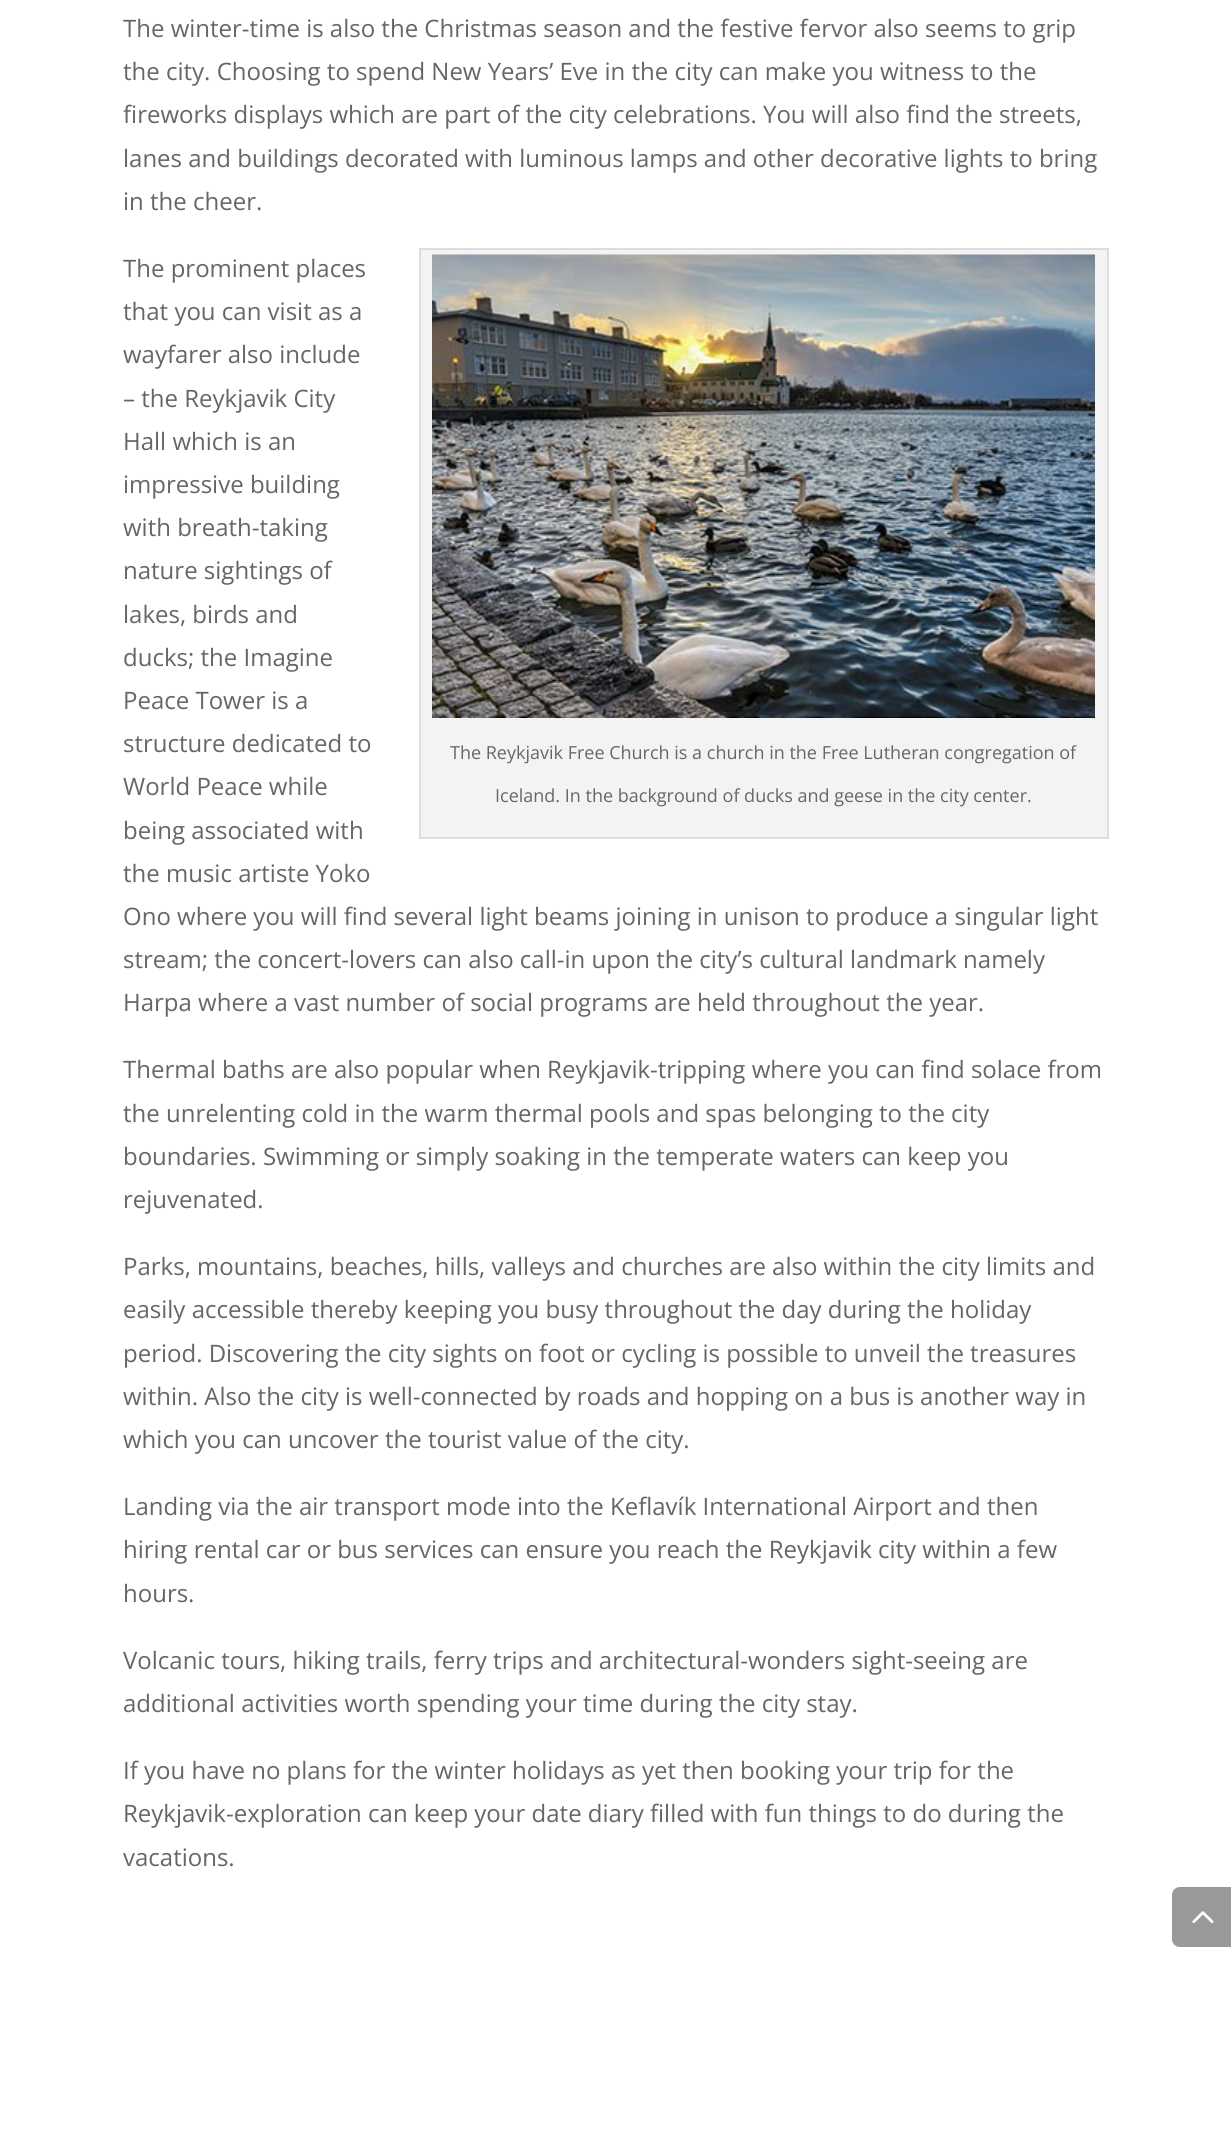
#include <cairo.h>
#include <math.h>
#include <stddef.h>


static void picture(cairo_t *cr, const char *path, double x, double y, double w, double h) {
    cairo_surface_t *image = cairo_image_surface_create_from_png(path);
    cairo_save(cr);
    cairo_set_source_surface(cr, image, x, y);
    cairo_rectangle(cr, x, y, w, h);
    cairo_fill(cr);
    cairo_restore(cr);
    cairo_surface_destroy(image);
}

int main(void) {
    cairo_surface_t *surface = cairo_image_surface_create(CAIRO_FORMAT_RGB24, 1231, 2134);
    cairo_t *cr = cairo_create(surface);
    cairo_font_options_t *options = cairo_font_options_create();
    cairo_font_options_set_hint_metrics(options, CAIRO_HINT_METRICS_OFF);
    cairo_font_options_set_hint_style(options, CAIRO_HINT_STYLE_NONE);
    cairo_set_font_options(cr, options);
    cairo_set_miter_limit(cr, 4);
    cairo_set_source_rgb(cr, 1, 1, 1);
    cairo_paint(cr);
    cairo_select_font_face(cr, "Open Sans", CAIRO_FONT_SLANT_NORMAL, CAIRO_FONT_WEIGHT_NORMAL);
    cairo_set_font_size(cr, 24);
    cairo_set_source_rgb(cr, 0.4, 0.4, 0.4);
    cairo_move_to(cr, 123, 37);
    cairo_show_text(cr, "The winter-time is also the Christmas season and the festive fervor also seems to grip");
    cairo_move_to(cr, 123, 80);
    cairo_show_text(cr, "the city. Choosing to spend New Years’ Eve in the city can make you witness to the");
    cairo_move_to(cr, 123, 123);
    cairo_show_text(cr, "fireworks displays which are part of the city celebrations. You will also find the streets,");
    cairo_move_to(cr, 123, 167);
    cairo_show_text(cr, "lanes and buildings decorated with luminous lamps and other decorative lights to bring");
    cairo_move_to(cr, 123, 210);
    cairo_show_text(cr, "in the cheer.");
    cairo_move_to(cr, 123, 277);
    cairo_show_text(cr, "The prominent places");
    cairo_move_to(cr, 123, 320);
    cairo_show_text(cr, "that you can visit as a");
    cairo_move_to(cr, 123, 363);
    cairo_show_text(cr, "wayfarer also include");
    cairo_move_to(cr, 123, 407);
    cairo_show_text(cr, "– the Reykjavik City");
    cairo_move_to(cr, 123, 450);
    cairo_show_text(cr, "Hall which is an");
    cairo_move_to(cr, 123, 493);
    cairo_show_text(cr, "impressive building");
    cairo_move_to(cr, 123, 536);
    cairo_show_text(cr, "with breath-taking");
    cairo_move_to(cr, 123, 579);
    cairo_show_text(cr, "nature sightings of");
    cairo_move_to(cr, 123, 623);
    cairo_show_text(cr, "lakes, birds and");
    cairo_move_to(cr, 123, 666);
    cairo_show_text(cr, "ducks; the Imagine");
    cairo_move_to(cr, 123, 709);
    cairo_show_text(cr, "Peace Tower is a");
    cairo_move_to(cr, 123, 752);
    cairo_show_text(cr, "structure dedicated to");
    cairo_move_to(cr, 123, 795);
    cairo_show_text(cr, "World Peace while");
    cairo_move_to(cr, 123, 839);
    cairo_show_text(cr, "being associated with");
    cairo_move_to(cr, 123, 882);
    cairo_show_text(cr, "the music artiste Yoko");
    cairo_move_to(cr, 123, 925);
    cairo_show_text(cr, "Ono where you will find several light beams joining in unison to produce a singular light");
    cairo_move_to(cr, 123, 968);
    cairo_show_text(cr, "stream; the concert-lovers can also call-in upon the city’s cultural landmark namely");
    cairo_move_to(cr, 123, 1011);
    cairo_show_text(cr, "Harpa where a vast number of social programs are held throughout the year.");
    cairo_set_source_rgb(cr, 0.953, 0.953, 0.953);
    cairo_rectangle(cr, 420, 249, 688, 589);
    cairo_fill_preserve(cr);
    cairo_set_source_rgb(cr, 0.867, 0.867, 0.867);
    cairo_stroke(cr);
    picture(cr, "img1.png", 432, 254, 663, 464);
    cairo_set_font_size(cr, 18);
    cairo_set_source_rgb(cr, 0.4, 0.4, 0.4);
    cairo_move_to(cr, 450, 759);
    cairo_show_text(cr, "The Reykjavik Free Church is a church in the Free Lutheran congregation of");
    cairo_move_to(cr, 495, 802);
    cairo_show_text(cr, "Iceland. In the background of ducks and geese in the city center.");
    cairo_set_font_size(cr, 24);
    cairo_move_to(cr, 123, 1078);
    cairo_show_text(cr, "Thermal baths are also popular when Reykjavik-tripping where you can find solace from");
    cairo_move_to(cr, 123, 1122);
    cairo_show_text(cr, "the unrelenting cold in the warm thermal pools and spas belonging to the city");
    cairo_move_to(cr, 123, 1165);
    cairo_show_text(cr, "boundaries. Swimming or simply soaking in the temperate waters can keep you");
    cairo_move_to(cr, 123, 1208);
    cairo_show_text(cr, "rejuvenated.");
    cairo_move_to(cr, 123, 1275);
    cairo_show_text(cr, "Parks, mountains, beaches, hills, valleys and churches are also within the city limits and");
    cairo_move_to(cr, 123, 1318);
    cairo_show_text(cr, "easily accessible thereby keeping you busy throughout the day during the holiday");
    cairo_move_to(cr, 123, 1362);
    cairo_show_text(cr, "period. Discovering the city sights on foot or cycling is possible to unveil the treasures");
    cairo_move_to(cr, 123, 1405);
    cairo_show_text(cr, "within. Also the city is well-connected by roads and hopping on a bus is another way in");
    cairo_move_to(cr, 123, 1448);
    cairo_show_text(cr, "which you can uncover the tourist value of the city.");
    cairo_move_to(cr, 123, 1515);
    cairo_show_text(cr, "Landing via the air transport mode into the Keflavík International Airport and then");
    cairo_move_to(cr, 123, 1558);
    cairo_show_text(cr, "hiring rental car or bus services can ensure you reach the Reykjavik city within a few");
    cairo_move_to(cr, 123, 1602);
    cairo_show_text(cr, "hours.");
    cairo_move_to(cr, 123, 1669);
    cairo_show_text(cr, "Volcanic tours, hiking trails, ferry trips and architectural-wonders sight-seeing are");
    cairo_move_to(cr, 123, 1712);
    cairo_show_text(cr, "additional activities worth spending your time during the city stay.");
    cairo_move_to(cr, 123, 1779);
    cairo_show_text(cr, "If you have no plans for the winter holidays as yet then booking your trip for the");
    cairo_move_to(cr, 123, 1822);
    cairo_show_text(cr, "Reykjavik-exploration can keep your date diary filled with fun things to do during the");
    cairo_move_to(cr, 123, 1866);
    cairo_show_text(cr, "vacations.");
    cairo_set_source_rgb(cr, 0.6, 0.6, 0.6);
    cairo_new_path(cr);
    cairo_move_to(cr, 1180, 1887);
    cairo_line_to(cr, 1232, 1887);
    cairo_line_to(cr, 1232, 1947);
    cairo_line_to(cr, 1180, 1947);
    cairo_curve_to(cr, 1175.5, 1947, 1172, 1943.5, 1172, 1939);
    cairo_line_to(cr, 1172, 1895);
    cairo_curve_to(cr, 1172, 1890.5, 1175.5, 1887, 1180, 1887);
    cairo_close_path(cr);
    cairo_fill(cr);
    picture(cr, "img2.png", 1192, 1911, 22, 13);
    cairo_surface_write_to_png(surface, "page.png");
    cairo_font_options_destroy(options);
    cairo_destroy(cr);
    cairo_surface_destroy(surface);
    return 0;
}
